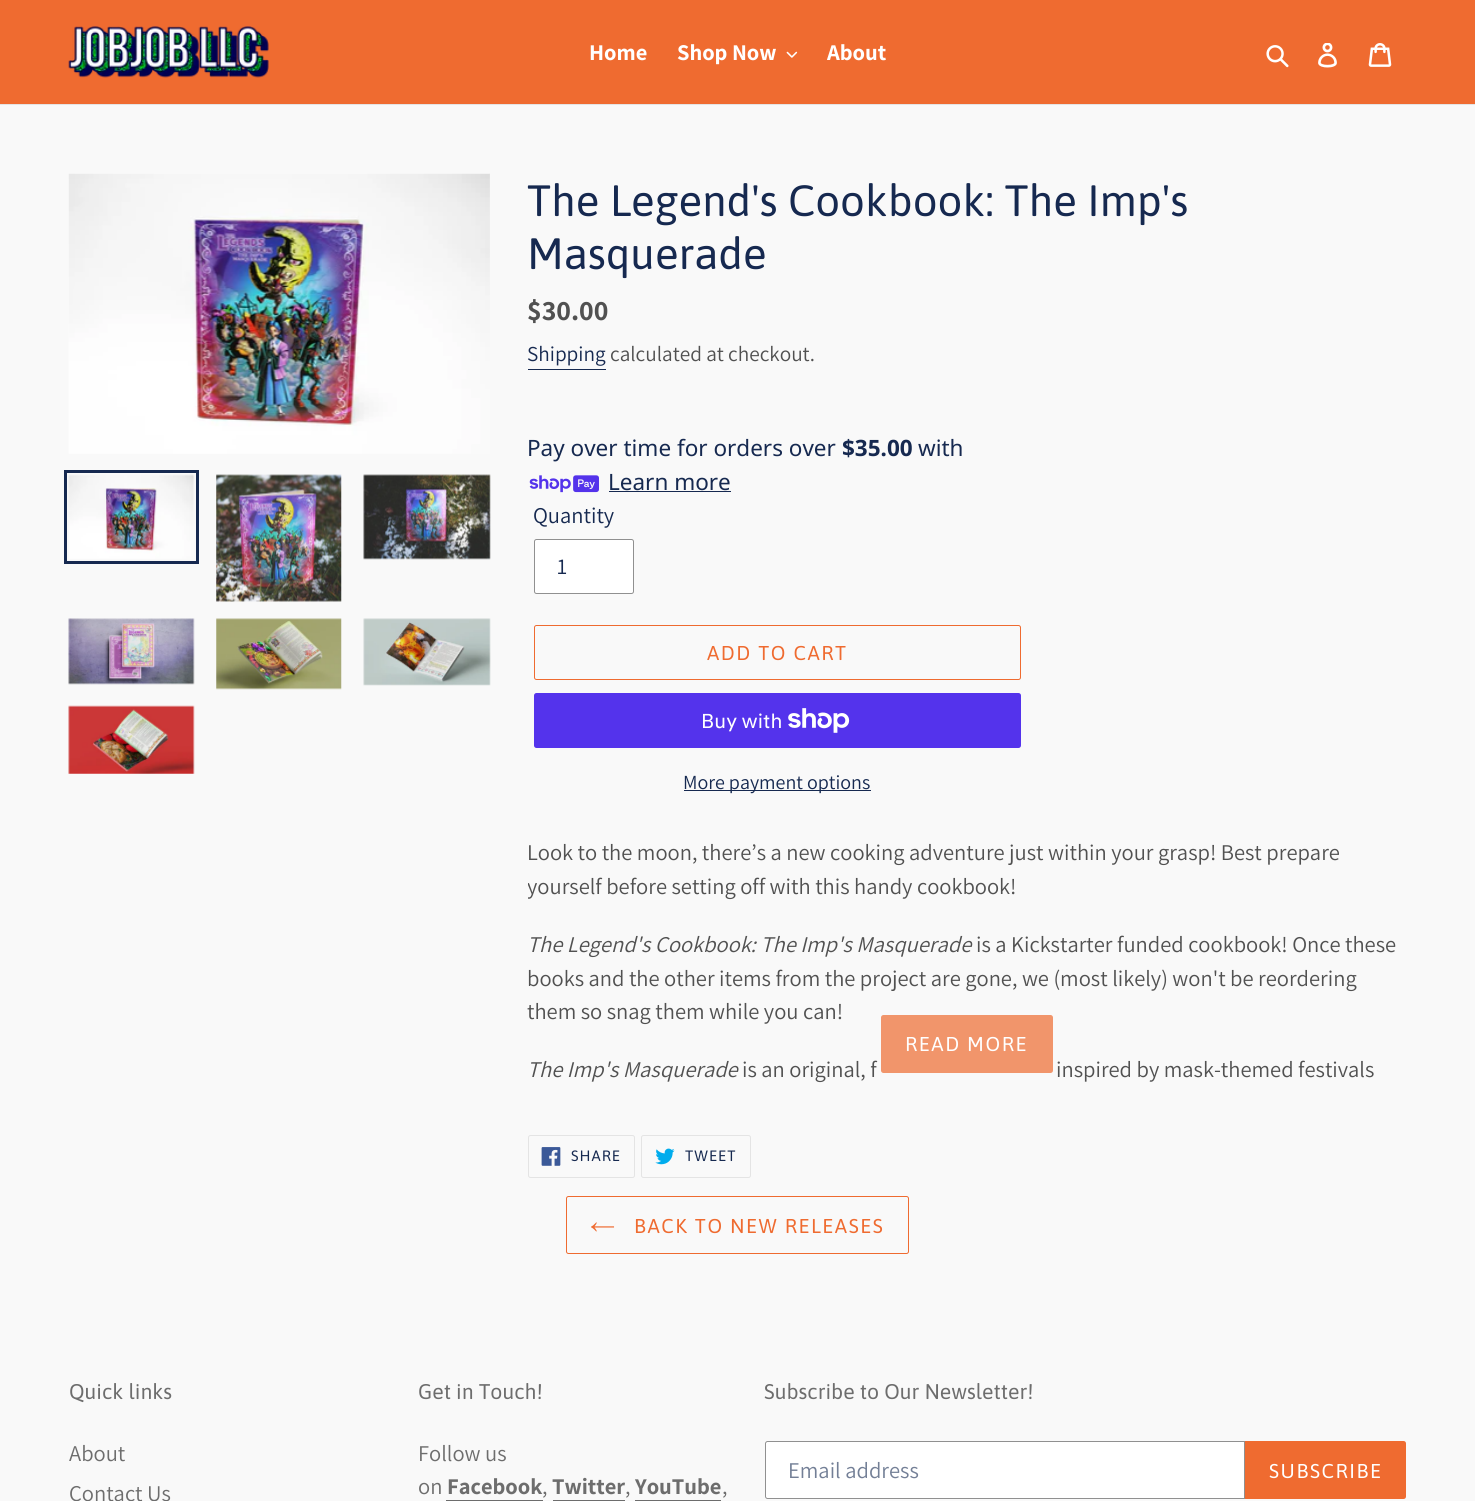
#include <cairo.h>
#include <math.h>
#include <stddef.h>


static void spaced_text(cairo_t *cr, double x, double y, const char *s, double letter, double word) {
    cairo_move_to(cr, x, y);
    while (*s) {
        char ch[5] = {0};
        int n = 0;
        do ch[n++] = *s++; while ((*s & 0xC0) == 0x80);
        cairo_show_text(cr, ch);
        cairo_rel_move_to(cr, letter + word * (*ch == ' '), 0);
    }
}

static void round_rect(cairo_t *cr, double x, double y, double w, double h, double r) {
    cairo_new_sub_path(cr);
    cairo_arc(cr, x + w - r, y + h - r, r, 0, M_PI / 2);
    cairo_arc(cr, x + r, y + h - r, r, M_PI / 2, M_PI);
    cairo_arc(cr, x + r, y + r, r, M_PI, 1.5 * M_PI);
    cairo_arc(cr, x + w - r, y + r, r, 1.5 * M_PI, 2 * M_PI);
    cairo_close_path(cr);
}

static void picture(cairo_t *cr, const char *path, double x, double y, double w, double h) {
    cairo_surface_t *image = cairo_image_surface_create_from_png(path);
    cairo_save(cr);
    cairo_set_source_surface(cr, image, x, y);
    cairo_rectangle(cr, x, y, w, h);
    cairo_fill(cr);
    cairo_restore(cr);
    cairo_surface_destroy(image);
}

int main(void) {
    cairo_surface_t *surface = cairo_image_surface_create(CAIRO_FORMAT_RGB24, 1475, 1501);
    cairo_t *cr = cairo_create(surface);
    cairo_font_options_t *options = cairo_font_options_create();
    cairo_font_options_set_hint_metrics(options, CAIRO_HINT_METRICS_OFF);
    cairo_font_options_set_hint_style(options, CAIRO_HINT_STYLE_NONE);
    cairo_set_font_options(cr, options);
    cairo_set_miter_limit(cr, 4);
    cairo_set_source_rgb(cr, 0.973, 0.973, 0.973);
    cairo_paint(cr);
    cairo_set_source_rgb(cr, 0.937, 0.42, 0.188);
    cairo_rectangle(cr, 0, 0, 1475, 104);
    cairo_fill(cr);
    cairo_set_source_rgb(cr, 0.894, 0.894, 0.894);
    cairo_rectangle(cr, 0, 104, 1475, 1);
    cairo_fill(cr);
    picture(cr, "img1.png", 68, 26, 201, 52);
    cairo_select_font_face(cr, "Assistant", CAIRO_FONT_SLANT_NORMAL, CAIRO_FONT_WEIGHT_BOLD);
    cairo_set_font_size(cr, 22.5);
    cairo_set_source_rgb(cr, 1, 1, 1);
    cairo_move_to(cr, 589, 60);
    cairo_show_text(cr, "Home");
    cairo_move_to(cr, 677, 60);
    cairo_show_text(cr, "Shop Now");
    picture(cr, "img2.png", 786, 51, 12, 7);
    cairo_move_to(cr, 827, 60);
    cairo_show_text(cr, "About");
    picture(cr, "img3.png", 1266, 45, 23, 23);
    picture(cr, "img4.png", 1318, 43, 19, 25);
    picture(cr, "img5.png", 1368, 43, 24, 24);
    picture(cr, "img6.png", 68, 173, 422, 281);
    cairo_rectangle(cr, 65.5, 471.5, 132, 91);
    cairo_set_source_rgb(cr, 0.086, 0.161, 0.314);
    cairo_set_line_width(cr, 3);
    cairo_stroke(cr);
    picture(cr, "img7.png", 68, 474, 127, 85);
    picture(cr, "img8.png", 216, 474, 126, 128);
    picture(cr, "img9.png", 363, 474, 128, 86);
    picture(cr, "img10.png", 68, 618, 127, 67);
    picture(cr, "img11.png", 216, 618, 126, 72);
    picture(cr, "img12.png", 363, 618, 128, 68);
    picture(cr, "img13.png", 68, 705, 127, 69);
    cairo_select_font_face(cr, "Asap", CAIRO_FONT_SLANT_NORMAL, CAIRO_FONT_WEIGHT_NORMAL);
    cairo_set_font_size(cr, 43.75);
    cairo_move_to(cr, 527, 216);
    cairo_show_text(cr, "The Legend's Cookbook: The Imp's");
    cairo_move_to(cr, 527, 269);
    cairo_show_text(cr, "Masquerade");
    cairo_select_font_face(cr, "Assistant", CAIRO_FONT_SLANT_NORMAL, CAIRO_FONT_WEIGHT_BOLD);
    cairo_set_font_size(cr, 28);
    cairo_set_source_rgb(cr, 0.318, 0.318, 0.318);
    cairo_move_to(cr, 527, 320);
    cairo_show_text(cr, "$30.00");
    cairo_select_font_face(cr, "Assistant", CAIRO_FONT_SLANT_NORMAL, CAIRO_FONT_WEIGHT_NORMAL);
    cairo_set_font_size(cr, 21.25);
    cairo_set_source_rgb(cr, 0.086, 0.161, 0.314);
    cairo_move_to(cr, 527, 361);
    cairo_show_text(cr, "Shipping");
    cairo_rectangle(cr, 528, 369, 78, 1);
    cairo_fill(cr);
    cairo_set_source_rgb(cr, 0.318, 0.318, 0.318);
    cairo_move_to(cr, 610, 361);
    cairo_show_text(cr, "calculated at checkout.");
    cairo_select_font_face(cr, "Noto Sans", CAIRO_FONT_SLANT_NORMAL, CAIRO_FONT_WEIGHT_NORMAL);
    cairo_set_font_size(cr, 22.5);
    cairo_set_source_rgb(cr, 0.086, 0.161, 0.314);
    cairo_move_to(cr, 527, 456);
    cairo_show_text(cr, "Pay over time for orders over");
    cairo_select_font_face(cr, "Noto Sans", CAIRO_FONT_SLANT_NORMAL, CAIRO_FONT_WEIGHT_BOLD);
    cairo_move_to(cr, 842, 456);
    cairo_show_text(cr, "$35.00");
    cairo_select_font_face(cr, "Noto Sans", CAIRO_FONT_SLANT_NORMAL, CAIRO_FONT_WEIGHT_NORMAL);
    cairo_move_to(cr, 918, 456);
    cairo_show_text(cr, "with");
    picture(cr, "img14.png", 529, 475, 70, 18);
    cairo_move_to(cr, 608, 490);
    cairo_show_text(cr, "Learn more");
    cairo_rectangle(cr, 609, 491, 122, 1);
    cairo_fill(cr);
    cairo_select_font_face(cr, "Assistant", CAIRO_FONT_SLANT_NORMAL, CAIRO_FONT_WEIGHT_NORMAL);
    cairo_move_to(cr, 533, 523);
    cairo_show_text(cr, "Quantity");
    cairo_set_source_rgb(cr, 1, 1, 1);
    round_rect(cr, 534.5, 539.5, 99, 54, 2);
    cairo_fill_preserve(cr);
    cairo_set_source_rgb(cr, 0.565, 0.565, 0.565);
    cairo_set_line_width(cr, 1);
    cairo_stroke(cr);
    cairo_set_source_rgb(cr, 0.086, 0.161, 0.314);
    cairo_move_to(cr, 557, 574);
    cairo_show_text(cr, "1");
    round_rect(cr, 534.5, 625.5, 486, 54, 2);
    cairo_set_source_rgb(cr, 0.937, 0.42, 0.188);
    cairo_stroke(cr);
    cairo_select_font_face(cr, "Asap", CAIRO_FONT_SLANT_NORMAL, CAIRO_FONT_WEIGHT_NORMAL);
    cairo_set_font_size(cr, 20);
    spaced_text(cr, 707, 660, "ADD TO CART", 1.6, 0);
    cairo_set_source_rgb(cr, 0.329, 0.2, 0.922);
    round_rect(cr, 534, 693, 487, 55, 2.5);
    cairo_fill(cr);
    cairo_select_font_face(cr, "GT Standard", CAIRO_FONT_SLANT_NORMAL, CAIRO_FONT_WEIGHT_NORMAL);
    cairo_set_source_rgb(cr, 1, 1, 1);
    cairo_move_to(cr, 701, 728);
    cairo_show_text(cr, "Buy with");
    picture(cr, "img15.png", 788, 708, 62, 25);
    cairo_set_source_rgb(cr, 0.086, 0.161, 0.314);
    cairo_rectangle(cr, 684, 790, 187, 1);
    cairo_fill(cr);
    cairo_select_font_face(cr, "Assistant", CAIRO_FONT_SLANT_NORMAL, CAIRO_FONT_WEIGHT_NORMAL);
    cairo_move_to(cr, 683, 789);
    cairo_show_text(cr, "More payment options");
    cairo_set_font_size(cr, 22.5);
    cairo_set_source_rgb(cr, 0.318, 0.318, 0.318);
    cairo_move_to(cr, 527, 860);
    cairo_show_text(cr, "Look to the moon, there’s a new cooking adventure just within your grasp! Best prepare");
    cairo_save(cr);
    cairo_rectangle(cr, 528, 835, 878, 250);
    cairo_clip(cr);
    cairo_move_to(cr, 527, 894);
    cairo_show_text(cr, "yourself before setting off with this handy cookbook!");
    cairo_restore(cr);
    cairo_select_font_face(cr, "Assistant", CAIRO_FONT_SLANT_ITALIC, CAIRO_FONT_WEIGHT_NORMAL);
    cairo_move_to(cr, 527, 952);
    cairo_show_text(cr, "The Legend's Cookbook: The Imp's Masquerade");
    cairo_select_font_face(cr, "Assistant", CAIRO_FONT_SLANT_NORMAL, CAIRO_FONT_WEIGHT_NORMAL);
    cairo_move_to(cr, 976, 952);
    cairo_show_text(cr, "is a Kickstarter funded cookbook! Once these");
    cairo_move_to(cr, 527, 986);
    cairo_show_text(cr, "books and the other items from the project are gone, we (most likely) won't be reordering");
    cairo_move_to(cr, 527, 1019);
    cairo_show_text(cr, "them so snag them while you can!");
    cairo_set_source_rgba(cr, 0.937, 0.42, 0.188, 0.7);
    round_rect(cr, 881, 1015, 172, 58, 2.5);
    cairo_fill(cr);
    cairo_select_font_face(cr, "Asap", CAIRO_FONT_SLANT_NORMAL, CAIRO_FONT_WEIGHT_NORMAL);
    cairo_set_font_size(cr, 20);
    cairo_set_source_rgb(cr, 1, 1, 1);
    spaced_text(cr, 905, 1051, "READ MORE", 1.6, 0);
    cairo_select_font_face(cr, "Assistant", CAIRO_FONT_SLANT_ITALIC, CAIRO_FONT_WEIGHT_NORMAL);
    cairo_set_font_size(cr, 22.5);
    cairo_set_source_rgb(cr, 0.318, 0.318, 0.318);
    cairo_move_to(cr, 527, 1077);
    cairo_show_text(cr, "The Imp's Masquerade");
    cairo_select_font_face(cr, "Assistant", CAIRO_FONT_SLANT_NORMAL, CAIRO_FONT_WEIGHT_NORMAL);
    cairo_move_to(cr, 742, 1077);
    cairo_show_text(cr, "is an original, f");
    cairo_move_to(cr, 1056, 1077);
    cairo_show_text(cr, "inspired by mask-themed festivals");
    round_rect(cr, 528.5, 1135.5, 106, 42, 2);
    cairo_set_source_rgb(cr, 0.894, 0.894, 0.894);
    cairo_stroke(cr);
    picture(cr, "img16.png", 541, 1147, 20, 19);
    cairo_select_font_face(cr, "Asap", CAIRO_FONT_SLANT_NORMAL, CAIRO_FONT_WEIGHT_NORMAL);
    cairo_set_font_size(cr, 15);
    cairo_set_source_rgb(cr, 0.086, 0.161, 0.314);
    spaced_text(cr, 571, 1161, "SHARE", 1, 0);
    round_rect(cr, 641.5, 1135.5, 109, 42, 2);
    cairo_set_source_rgb(cr, 0.894, 0.894, 0.894);
    cairo_stroke(cr);
    picture(cr, "img17.png", 655, 1148, 20, 17);
    cairo_set_source_rgb(cr, 0.086, 0.161, 0.314);
    spaced_text(cr, 685, 1161, "TWEET", 1, 0);
    round_rect(cr, 566.5, 1196.5, 342, 57, 2);
    cairo_set_source_rgb(cr, 0.937, 0.42, 0.188);
    cairo_stroke(cr);
    picture(cr, "img18.png", 591, 1222, 24, 10);
    cairo_set_font_size(cr, 20);
    spaced_text(cr, 634, 1233, "BACK TO NEW RELEASES", 1.6, 0);
    cairo_set_font_size(cr, 21.25);
    cairo_set_source_rgb(cr, 0.427, 0.427, 0.427);
    cairo_move_to(cr, 69, 1399);
    cairo_show_text(cr, "Quick links");
    cairo_select_font_face(cr, "Assistant", CAIRO_FONT_SLANT_NORMAL, CAIRO_FONT_WEIGHT_NORMAL);
    cairo_set_font_size(cr, 22.5);
    cairo_move_to(cr, 69, 1461);
    cairo_show_text(cr, "About");
    cairo_move_to(cr, 69, 1501);
    cairo_show_text(cr, "Contact Us");
    cairo_select_font_face(cr, "Asap", CAIRO_FONT_SLANT_NORMAL, CAIRO_FONT_WEIGHT_NORMAL);
    cairo_set_font_size(cr, 21.25);
    cairo_move_to(cr, 418, 1399);
    cairo_show_text(cr, "Get in Touch!");
    cairo_select_font_face(cr, "Assistant", CAIRO_FONT_SLANT_NORMAL, CAIRO_FONT_WEIGHT_NORMAL);
    cairo_set_font_size(cr, 22.5);
    cairo_move_to(cr, 418, 1461);
    cairo_show_text(cr, "Follow us");
    cairo_move_to(cr, 418, 1494);
    cairo_show_text(cr, "on");
    cairo_select_font_face(cr, "Assistant", CAIRO_FONT_SLANT_NORMAL, CAIRO_FONT_WEIGHT_BOLD);
    cairo_move_to(cr, 447, 1494);
    cairo_show_text(cr, "Facebook");
    cairo_rectangle(cr, 446, 1500, 97, 1);
    cairo_fill(cr);
    cairo_select_font_face(cr, "Assistant", CAIRO_FONT_SLANT_NORMAL, CAIRO_FONT_WEIGHT_NORMAL);
    cairo_move_to(cr, 542, 1494);
    cairo_show_text(cr, ",");
    cairo_select_font_face(cr, "Assistant", CAIRO_FONT_SLANT_NORMAL, CAIRO_FONT_WEIGHT_BOLD);
    cairo_move_to(cr, 552, 1494);
    cairo_show_text(cr, "Twitter");
    cairo_rectangle(cr, 553, 1500, 72, 1);
    cairo_fill(cr);
    cairo_select_font_face(cr, "Assistant", CAIRO_FONT_SLANT_NORMAL, CAIRO_FONT_WEIGHT_NORMAL);
    cairo_move_to(cr, 625, 1494);
    cairo_show_text(cr, ",");
    cairo_select_font_face(cr, "Assistant", CAIRO_FONT_SLANT_NORMAL, CAIRO_FONT_WEIGHT_BOLD);
    cairo_move_to(cr, 635, 1494);
    cairo_show_text(cr, "YouTube");
    cairo_rectangle(cr, 635, 1500, 86, 1);
    cairo_fill(cr);
    cairo_select_font_face(cr, "Assistant", CAIRO_FONT_SLANT_NORMAL, CAIRO_FONT_WEIGHT_NORMAL);
    cairo_move_to(cr, 722, 1494);
    cairo_show_text(cr, ",");
    cairo_select_font_face(cr, "Asap", CAIRO_FONT_SLANT_NORMAL, CAIRO_FONT_WEIGHT_NORMAL);
    cairo_set_font_size(cr, 21.25);
    cairo_move_to(cr, 764, 1399);
    cairo_show_text(cr, "Subscribe to Our Newsletter!");
    cairo_set_source_rgb(cr, 1, 1, 1);
    cairo_new_path(cr);
    cairo_move_to(cr, 767.5, 1441.5);
    cairo_line_to(cr, 1244.5, 1441.5);
    cairo_line_to(cr, 1244.5, 1498.5);
    cairo_line_to(cr, 767.5, 1498.5);
    cairo_curve_to(cr, 766.5, 1498.5, 765.5, 1497.5, 765.5, 1496.5);
    cairo_line_to(cr, 765.5, 1443.5);
    cairo_curve_to(cr, 765.5, 1442.5, 766.5, 1441.5, 767.5, 1441.5);
    cairo_close_path(cr);
    cairo_fill_preserve(cr);
    cairo_set_source_rgb(cr, 0.565, 0.565, 0.565);
    cairo_stroke(cr);
    cairo_select_font_face(cr, "Assistant", CAIRO_FONT_SLANT_NORMAL, CAIRO_FONT_WEIGHT_NORMAL);
    cairo_set_font_size(cr, 22.5);
    cairo_set_source_rgb(cr, 0.451, 0.498, 0.588);
    cairo_move_to(cr, 788, 1478);
    cairo_show_text(cr, "Email address");
    cairo_set_source_rgb(cr, 0.937, 0.42, 0.188);
    cairo_new_path(cr);
    cairo_move_to(cr, 1245, 1441);
    cairo_line_to(cr, 1403.5, 1441);
    cairo_curve_to(cr, 1405, 1441, 1406, 1442, 1406, 1443.5);
    cairo_line_to(cr, 1406, 1496.5);
    cairo_curve_to(cr, 1406, 1498, 1405, 1499, 1403.5, 1499);
    cairo_line_to(cr, 1245, 1499);
    cairo_close_path(cr);
    cairo_fill(cr);
    cairo_select_font_face(cr, "Asap", CAIRO_FONT_SLANT_NORMAL, CAIRO_FONT_WEIGHT_NORMAL);
    cairo_set_font_size(cr, 20);
    cairo_set_source_rgb(cr, 1, 1, 1);
    spaced_text(cr, 1269, 1478, "SUBSCRIBE", 1.6, 0);
    cairo_surface_write_to_png(surface, "page.png");
    cairo_font_options_destroy(options);
    cairo_destroy(cr);
    cairo_surface_destroy(surface);
    return 0;
}
